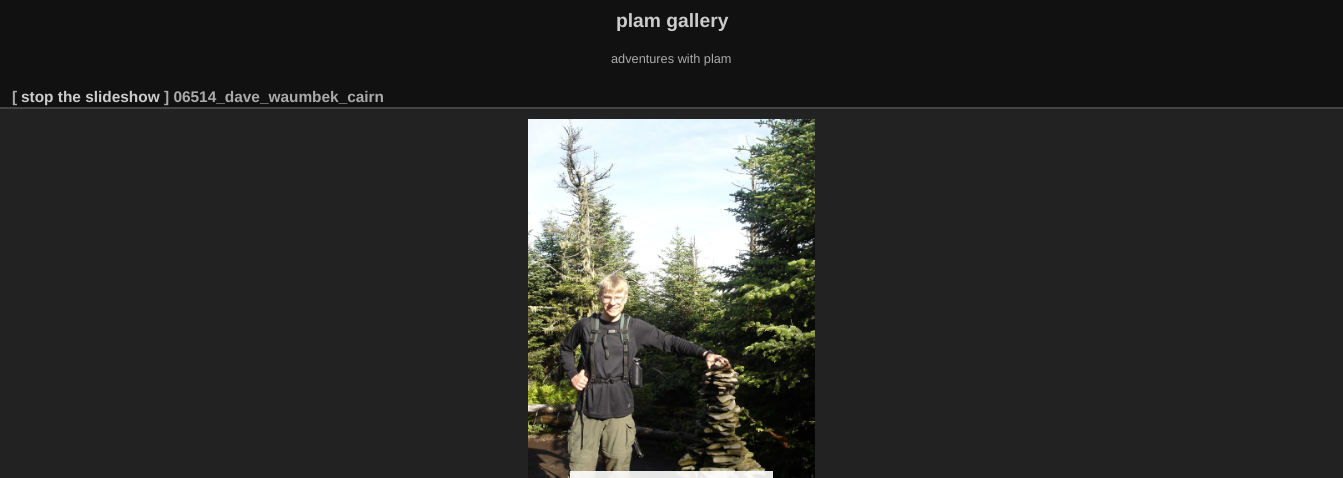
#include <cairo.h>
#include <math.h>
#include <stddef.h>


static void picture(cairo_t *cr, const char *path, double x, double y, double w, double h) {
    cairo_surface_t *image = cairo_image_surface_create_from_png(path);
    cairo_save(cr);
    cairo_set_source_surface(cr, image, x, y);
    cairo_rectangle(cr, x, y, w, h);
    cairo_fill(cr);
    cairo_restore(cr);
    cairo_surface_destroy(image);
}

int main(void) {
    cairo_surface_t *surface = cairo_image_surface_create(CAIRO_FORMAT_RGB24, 1343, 478);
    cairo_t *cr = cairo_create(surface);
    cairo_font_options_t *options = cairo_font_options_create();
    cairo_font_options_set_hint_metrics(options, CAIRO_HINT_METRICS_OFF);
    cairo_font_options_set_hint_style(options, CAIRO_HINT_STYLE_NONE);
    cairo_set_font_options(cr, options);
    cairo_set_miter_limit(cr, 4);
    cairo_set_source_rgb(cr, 0.067, 0.067, 0.067);
    cairo_paint(cr);
    cairo_select_font_face(cr, "Liberation Sans", CAIRO_FONT_SLANT_NORMAL, CAIRO_FONT_WEIGHT_BOLD);
    cairo_set_font_size(cr, 19.25);
    cairo_set_source_rgb(cr, 0.8, 0.8, 0.8);
    cairo_move_to(cr, 616, 27);
    cairo_show_text(cr, "plam gallery");
    cairo_select_font_face(cr, "Liberation Sans", CAIRO_FONT_SLANT_NORMAL, CAIRO_FONT_WEIGHT_NORMAL);
    cairo_set_font_size(cr, 12.75);
    cairo_set_source_rgb(cr, 0.667, 0.667, 0.667);
    cairo_move_to(cr, 611, 63);
    cairo_show_text(cr, "adventures with plam");
    cairo_set_source_rgb(cr, 0.267, 0.267, 0.267);
    cairo_rectangle(cr, 0, 107, 1343, 2);
    cairo_fill(cr);
    cairo_select_font_face(cr, "Liberation Sans", CAIRO_FONT_SLANT_NORMAL, CAIRO_FONT_WEIGHT_BOLD);
    cairo_set_font_size(cr, 15.4);
    cairo_set_source_rgb(cr, 0.667, 0.667, 0.667);
    cairo_move_to(cr, 12, 102);
    cairo_show_text(cr, "[");
    cairo_set_source_rgb(cr, 0.8, 0.8, 0.8);
    cairo_move_to(cr, 21, 102);
    cairo_show_text(cr, "stop the slideshow");
    cairo_set_source_rgb(cr, 0.667, 0.667, 0.667);
    cairo_move_to(cr, 164, 102);
    cairo_show_text(cr, "] 06514_dave_waumbek_cairn");
    cairo_set_source_rgb(cr, 0.133, 0.133, 0.133);
    cairo_rectangle(cr, 0, 109, 1343, 369);
    cairo_fill(cr);
    picture(cr, "img1.png", 528, 119, 287, 359);
    cairo_set_source_rgba(cr, 1, 1, 1, 0.9);
    cairo_rectangle(cr, 570, 471, 203, 7);
    cairo_fill(cr);
    cairo_surface_write_to_png(surface, "page.png");
    cairo_font_options_destroy(options);
    cairo_destroy(cr);
    cairo_surface_destroy(surface);
    return 0;
}
